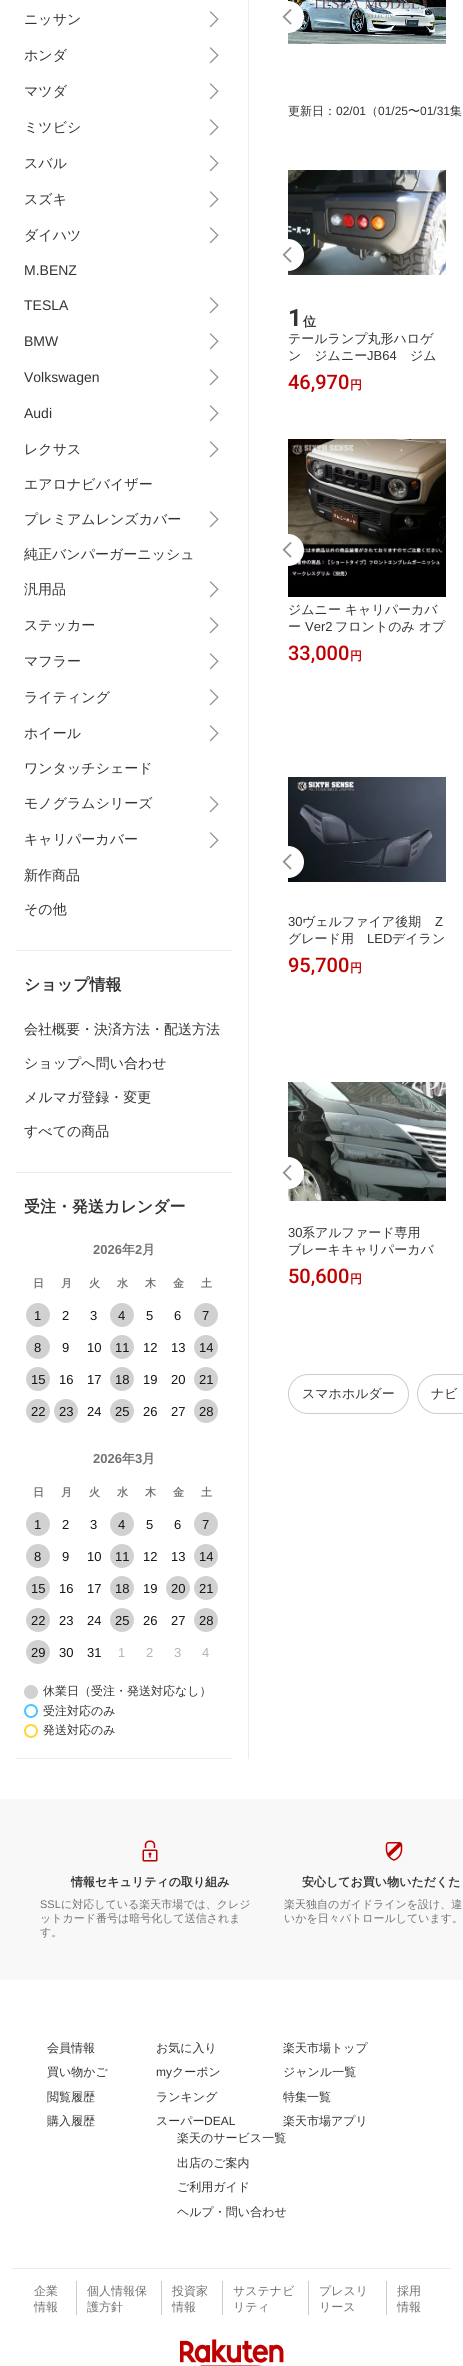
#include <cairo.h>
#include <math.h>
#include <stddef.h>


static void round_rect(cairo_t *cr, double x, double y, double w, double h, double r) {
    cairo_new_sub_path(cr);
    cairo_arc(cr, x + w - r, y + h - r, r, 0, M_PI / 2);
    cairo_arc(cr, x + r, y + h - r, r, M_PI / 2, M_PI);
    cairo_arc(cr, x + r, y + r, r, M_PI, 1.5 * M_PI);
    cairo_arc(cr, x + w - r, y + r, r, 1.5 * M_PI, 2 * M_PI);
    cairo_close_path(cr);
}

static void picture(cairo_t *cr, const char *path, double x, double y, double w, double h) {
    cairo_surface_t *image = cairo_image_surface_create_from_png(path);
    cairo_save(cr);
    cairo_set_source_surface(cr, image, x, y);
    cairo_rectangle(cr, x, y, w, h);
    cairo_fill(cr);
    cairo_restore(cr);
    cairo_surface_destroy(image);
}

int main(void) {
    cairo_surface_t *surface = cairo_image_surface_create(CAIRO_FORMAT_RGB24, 463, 2366);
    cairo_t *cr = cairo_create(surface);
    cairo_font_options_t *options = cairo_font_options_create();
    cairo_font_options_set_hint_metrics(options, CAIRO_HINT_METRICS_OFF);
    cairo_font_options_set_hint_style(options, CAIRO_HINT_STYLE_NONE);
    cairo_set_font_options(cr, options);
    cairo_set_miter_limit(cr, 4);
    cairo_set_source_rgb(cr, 1, 1, 1);
    cairo_paint(cr);
    cairo_set_source_rgb(cr, 0.922, 0.922, 0.922);
    cairo_rectangle(cr, 248, 0, 1, 1759);
    cairo_fill(cr);
    cairo_rectangle(cr, 16, 950, 216, 1);
    cairo_fill(cr);
    cairo_select_font_face(cr, "WenQuanYi Zen Hei Medium", CAIRO_FONT_SLANT_NORMAL, CAIRO_FONT_WEIGHT_NORMAL);
    cairo_set_font_size(cr, 14);
    cairo_set_source_rgb(cr, 0.2, 0.2, 0.2);
    cairo_move_to(cr, 24, 24);
    cairo_show_text(cr, "ニッサン");
    picture(cr, "img1.png", 209, 11, 10, 17);
    cairo_move_to(cr, 24, 60);
    cairo_show_text(cr, "ホンダ");
    picture(cr, "img1.png", 209, 47, 10, 17);
    cairo_move_to(cr, 24, 96);
    cairo_show_text(cr, "マツダ");
    picture(cr, "img1.png", 209, 83, 10, 17);
    cairo_move_to(cr, 24, 132);
    cairo_show_text(cr, "ミツビシ");
    picture(cr, "img1.png", 209, 119, 10, 17);
    cairo_move_to(cr, 24, 168);
    cairo_show_text(cr, "スバル");
    picture(cr, "img1.png", 209, 155, 10, 17);
    cairo_move_to(cr, 24, 204);
    cairo_show_text(cr, "スズキ");
    picture(cr, "img1.png", 209, 191, 10, 17);
    cairo_move_to(cr, 24, 240);
    cairo_show_text(cr, "ダイハツ");
    picture(cr, "img1.png", 209, 227, 10, 17);
    cairo_select_font_face(cr, "Liberation Sans", CAIRO_FONT_SLANT_NORMAL, CAIRO_FONT_WEIGHT_NORMAL);
    cairo_move_to(cr, 24, 275);
    cairo_show_text(cr, "M.BENZ");
    cairo_move_to(cr, 24, 310);
    cairo_show_text(cr, "TESLA");
    picture(cr, "img1.png", 209, 297, 10, 17);
    cairo_move_to(cr, 24, 346);
    cairo_show_text(cr, "BMW");
    picture(cr, "img1.png", 209, 333, 10, 17);
    cairo_move_to(cr, 24, 382);
    cairo_show_text(cr, "Volkswagen");
    picture(cr, "img1.png", 209, 369, 10, 17);
    cairo_move_to(cr, 24, 418);
    cairo_show_text(cr, "Audi");
    picture(cr, "img1.png", 209, 405, 10, 17);
    cairo_select_font_face(cr, "WenQuanYi Zen Hei Medium", CAIRO_FONT_SLANT_NORMAL, CAIRO_FONT_WEIGHT_NORMAL);
    cairo_move_to(cr, 24, 454);
    cairo_show_text(cr, "レクサス");
    picture(cr, "img1.png", 209, 441, 10, 17);
    cairo_move_to(cr, 24, 489);
    cairo_show_text(cr, "エアロナビバイザー");
    cairo_move_to(cr, 24, 524);
    cairo_show_text(cr, "プレミアムレンズカバー");
    picture(cr, "img1.png", 209, 511, 10, 17);
    cairo_move_to(cr, 24, 559);
    cairo_show_text(cr, "純正バンパーガーニッシュ");
    cairo_move_to(cr, 24, 594);
    cairo_show_text(cr, "汎用品");
    picture(cr, "img1.png", 209, 581, 10, 17);
    cairo_move_to(cr, 24, 630);
    cairo_show_text(cr, "ステッカー");
    picture(cr, "img1.png", 209, 617, 10, 17);
    cairo_move_to(cr, 24, 666);
    cairo_show_text(cr, "マフラー");
    picture(cr, "img1.png", 209, 653, 10, 17);
    cairo_move_to(cr, 24, 702);
    cairo_show_text(cr, "ライティング");
    picture(cr, "img1.png", 209, 689, 10, 17);
    cairo_move_to(cr, 24, 738);
    cairo_show_text(cr, "ホイール");
    picture(cr, "img1.png", 209, 725, 10, 17);
    cairo_move_to(cr, 24, 773);
    cairo_show_text(cr, "ワンタッチシェード");
    cairo_move_to(cr, 24, 808);
    cairo_show_text(cr, "モノグラムシリーズ");
    picture(cr, "img1.png", 209, 796, 10, 17);
    cairo_move_to(cr, 24, 844);
    cairo_show_text(cr, "キャリパーカバー");
    picture(cr, "img1.png", 209, 832, 10, 17);
    cairo_move_to(cr, 24, 880);
    cairo_show_text(cr, "新作商品");
    cairo_move_to(cr, 24, 914);
    cairo_show_text(cr, "その他");
    cairo_set_source_rgb(cr, 0.922, 0.922, 0.922);
    cairo_rectangle(cr, 16, 1172, 216, 1);
    cairo_fill(cr);
    cairo_select_font_face(cr, "WenQuanYi Zen Hei", CAIRO_FONT_SLANT_NORMAL, CAIRO_FONT_WEIGHT_BOLD);
    cairo_set_font_size(cr, 16);
    cairo_set_source_rgb(cr, 0.2, 0.2, 0.2);
    cairo_move_to(cr, 24, 990);
    cairo_show_text(cr, "ショップ情報");
    cairo_select_font_face(cr, "WenQuanYi Zen Hei Medium", CAIRO_FONT_SLANT_NORMAL, CAIRO_FONT_WEIGHT_NORMAL);
    cairo_set_font_size(cr, 14);
    cairo_move_to(cr, 24, 1034);
    cairo_show_text(cr, "会社概要・決済方法・配送方法");
    cairo_move_to(cr, 24, 1068);
    cairo_show_text(cr, "ショップへ問い合わせ");
    cairo_move_to(cr, 24, 1102);
    cairo_show_text(cr, "メルマガ登録・変更");
    cairo_move_to(cr, 24, 1136);
    cairo_show_text(cr, "すべての商品");
    cairo_set_source_rgb(cr, 0.922, 0.922, 0.922);
    cairo_rectangle(cr, 16, 1758, 216, 1);
    cairo_fill(cr);
    cairo_select_font_face(cr, "WenQuanYi Zen Hei", CAIRO_FONT_SLANT_NORMAL, CAIRO_FONT_WEIGHT_BOLD);
    cairo_set_font_size(cr, 16);
    cairo_set_source_rgb(cr, 0.2, 0.2, 0.2);
    cairo_move_to(cr, 24, 1212);
    cairo_show_text(cr, "受注・発送カレンダー");
    cairo_select_font_face(cr, "Liberation Sans", CAIRO_FONT_SLANT_NORMAL, CAIRO_FONT_WEIGHT_BOLD);
    cairo_set_font_size(cr, 13);
    cairo_set_source_rgb(cr, 0.443, 0.443, 0.443);
    cairo_move_to(cr, 93, 1254);
    cairo_show_text(cr, "2026");
    cairo_select_font_face(cr, "WenQuanYi Zen Hei", CAIRO_FONT_SLANT_NORMAL, CAIRO_FONT_WEIGHT_BOLD);
    cairo_move_to(cr, 122, 1254);
    cairo_show_text(cr, "年");
    cairo_select_font_face(cr, "Liberation Sans", CAIRO_FONT_SLANT_NORMAL, CAIRO_FONT_WEIGHT_BOLD);
    cairo_move_to(cr, 135, 1254);
    cairo_show_text(cr, "2");
    cairo_select_font_face(cr, "WenQuanYi Zen Hei", CAIRO_FONT_SLANT_NORMAL, CAIRO_FONT_WEIGHT_BOLD);
    cairo_move_to(cr, 142, 1254);
    cairo_show_text(cr, "月");
    cairo_set_font_size(cr, 11);
    cairo_move_to(cr, 33, 1287);
    cairo_show_text(cr, "日");
    cairo_move_to(cr, 61, 1287);
    cairo_show_text(cr, "月");
    cairo_move_to(cr, 89, 1287);
    cairo_show_text(cr, "火");
    cairo_move_to(cr, 117, 1287);
    cairo_show_text(cr, "水");
    cairo_move_to(cr, 145, 1287);
    cairo_show_text(cr, "木");
    cairo_move_to(cr, 173, 1287);
    cairo_show_text(cr, "金");
    cairo_move_to(cr, 201, 1287);
    cairo_show_text(cr, "土");
    cairo_set_source_rgb(cr, 0.82, 0.82, 0.82);
    cairo_new_path(cr);
    cairo_arc(cr, 38, 1315, 12, 0, 2 * M_PI);
    cairo_fill(cr);
    cairo_select_font_face(cr, "Liberation Sans", CAIRO_FONT_SLANT_NORMAL, CAIRO_FONT_WEIGHT_NORMAL);
    cairo_set_font_size(cr, 13);
    cairo_set_source_rgb(cr, 0.082, 0.082, 0.082);
    cairo_move_to(cr, 34, 1320);
    cairo_show_text(cr, "1");
    cairo_move_to(cr, 62, 1320);
    cairo_show_text(cr, "2");
    cairo_move_to(cr, 90, 1320);
    cairo_show_text(cr, "3");
    cairo_set_source_rgb(cr, 0.82, 0.82, 0.82);
    cairo_new_path(cr);
    cairo_arc(cr, 122, 1315, 12, 0, 2 * M_PI);
    cairo_fill(cr);
    cairo_set_source_rgb(cr, 0.082, 0.082, 0.082);
    cairo_move_to(cr, 118, 1320);
    cairo_show_text(cr, "4");
    cairo_move_to(cr, 146, 1320);
    cairo_show_text(cr, "5");
    cairo_move_to(cr, 174, 1320);
    cairo_show_text(cr, "6");
    cairo_set_source_rgb(cr, 0.82, 0.82, 0.82);
    cairo_new_path(cr);
    cairo_arc(cr, 206, 1315, 12, 0, 2 * M_PI);
    cairo_fill(cr);
    cairo_set_source_rgb(cr, 0.082, 0.082, 0.082);
    cairo_move_to(cr, 202, 1320);
    cairo_show_text(cr, "7");
    cairo_set_source_rgb(cr, 0.82, 0.82, 0.82);
    cairo_new_path(cr);
    cairo_arc(cr, 38, 1347, 12, 0, 2 * M_PI);
    cairo_fill(cr);
    cairo_set_source_rgb(cr, 0.082, 0.082, 0.082);
    cairo_move_to(cr, 34, 1352);
    cairo_show_text(cr, "8");
    cairo_move_to(cr, 62, 1352);
    cairo_show_text(cr, "9");
    cairo_move_to(cr, 87, 1352);
    cairo_show_text(cr, "10");
    cairo_set_source_rgb(cr, 0.82, 0.82, 0.82);
    cairo_new_path(cr);
    cairo_arc(cr, 122, 1347, 12, 0, 2 * M_PI);
    cairo_fill(cr);
    cairo_set_source_rgb(cr, 0.082, 0.082, 0.082);
    cairo_move_to(cr, 115, 1352);
    cairo_show_text(cr, "11");
    cairo_move_to(cr, 143, 1352);
    cairo_show_text(cr, "12");
    cairo_move_to(cr, 171, 1352);
    cairo_show_text(cr, "13");
    cairo_set_source_rgb(cr, 0.82, 0.82, 0.82);
    cairo_new_path(cr);
    cairo_arc(cr, 206, 1347, 12, 0, 2 * M_PI);
    cairo_fill(cr);
    cairo_set_source_rgb(cr, 0.082, 0.082, 0.082);
    cairo_move_to(cr, 199, 1352);
    cairo_show_text(cr, "14");
    cairo_set_source_rgb(cr, 0.82, 0.82, 0.82);
    cairo_new_path(cr);
    cairo_arc(cr, 38, 1379, 12, 0, 2 * M_PI);
    cairo_fill(cr);
    cairo_set_source_rgb(cr, 0.082, 0.082, 0.082);
    cairo_move_to(cr, 31, 1384);
    cairo_show_text(cr, "15");
    cairo_move_to(cr, 59, 1384);
    cairo_show_text(cr, "16");
    cairo_move_to(cr, 87, 1384);
    cairo_show_text(cr, "17");
    cairo_set_source_rgb(cr, 0.82, 0.82, 0.82);
    cairo_new_path(cr);
    cairo_arc(cr, 122, 1379, 12, 0, 2 * M_PI);
    cairo_fill(cr);
    cairo_set_source_rgb(cr, 0.082, 0.082, 0.082);
    cairo_move_to(cr, 115, 1384);
    cairo_show_text(cr, "18");
    cairo_move_to(cr, 143, 1384);
    cairo_show_text(cr, "19");
    cairo_move_to(cr, 171, 1384);
    cairo_show_text(cr, "20");
    cairo_set_source_rgb(cr, 0.82, 0.82, 0.82);
    cairo_new_path(cr);
    cairo_arc(cr, 206, 1379, 12, 0, 2 * M_PI);
    cairo_fill(cr);
    cairo_set_source_rgb(cr, 0.082, 0.082, 0.082);
    cairo_move_to(cr, 199, 1384);
    cairo_show_text(cr, "21");
    cairo_set_source_rgb(cr, 0.82, 0.82, 0.82);
    cairo_new_path(cr);
    cairo_arc(cr, 38, 1411, 12, 0, 2 * M_PI);
    cairo_fill(cr);
    cairo_set_source_rgb(cr, 0.082, 0.082, 0.082);
    cairo_move_to(cr, 31, 1416);
    cairo_show_text(cr, "22");
    cairo_set_source_rgb(cr, 0.82, 0.82, 0.82);
    cairo_new_path(cr);
    cairo_arc(cr, 66, 1411, 12, 0, 2 * M_PI);
    cairo_fill(cr);
    cairo_set_source_rgb(cr, 0.082, 0.082, 0.082);
    cairo_move_to(cr, 59, 1416);
    cairo_show_text(cr, "23");
    cairo_move_to(cr, 87, 1416);
    cairo_show_text(cr, "24");
    cairo_set_source_rgb(cr, 0.82, 0.82, 0.82);
    cairo_new_path(cr);
    cairo_arc(cr, 122, 1411, 12, 0, 2 * M_PI);
    cairo_fill(cr);
    cairo_set_source_rgb(cr, 0.082, 0.082, 0.082);
    cairo_move_to(cr, 115, 1416);
    cairo_show_text(cr, "25");
    cairo_move_to(cr, 143, 1416);
    cairo_show_text(cr, "26");
    cairo_move_to(cr, 171, 1416);
    cairo_show_text(cr, "27");
    cairo_set_source_rgb(cr, 0.82, 0.82, 0.82);
    cairo_new_path(cr);
    cairo_arc(cr, 206, 1411, 12, 0, 2 * M_PI);
    cairo_fill(cr);
    cairo_set_source_rgb(cr, 0.082, 0.082, 0.082);
    cairo_move_to(cr, 199, 1416);
    cairo_show_text(cr, "28");
    cairo_select_font_face(cr, "Liberation Sans", CAIRO_FONT_SLANT_NORMAL, CAIRO_FONT_WEIGHT_BOLD);
    cairo_set_source_rgb(cr, 0.443, 0.443, 0.443);
    cairo_move_to(cr, 93, 1463);
    cairo_show_text(cr, "2026");
    cairo_select_font_face(cr, "WenQuanYi Zen Hei", CAIRO_FONT_SLANT_NORMAL, CAIRO_FONT_WEIGHT_BOLD);
    cairo_move_to(cr, 122, 1463);
    cairo_show_text(cr, "年");
    cairo_select_font_face(cr, "Liberation Sans", CAIRO_FONT_SLANT_NORMAL, CAIRO_FONT_WEIGHT_BOLD);
    cairo_move_to(cr, 135, 1463);
    cairo_show_text(cr, "3");
    cairo_select_font_face(cr, "WenQuanYi Zen Hei", CAIRO_FONT_SLANT_NORMAL, CAIRO_FONT_WEIGHT_BOLD);
    cairo_move_to(cr, 142, 1463);
    cairo_show_text(cr, "月");
    cairo_set_font_size(cr, 11);
    cairo_move_to(cr, 33, 1496);
    cairo_show_text(cr, "日");
    cairo_move_to(cr, 61, 1496);
    cairo_show_text(cr, "月");
    cairo_move_to(cr, 89, 1496);
    cairo_show_text(cr, "火");
    cairo_move_to(cr, 117, 1496);
    cairo_show_text(cr, "水");
    cairo_move_to(cr, 145, 1496);
    cairo_show_text(cr, "木");
    cairo_move_to(cr, 173, 1496);
    cairo_show_text(cr, "金");
    cairo_move_to(cr, 201, 1496);
    cairo_show_text(cr, "土");
    cairo_set_source_rgb(cr, 0.82, 0.82, 0.82);
    cairo_new_path(cr);
    cairo_arc(cr, 38, 1524, 12, 0, 2 * M_PI);
    cairo_fill(cr);
    cairo_select_font_face(cr, "Liberation Sans", CAIRO_FONT_SLANT_NORMAL, CAIRO_FONT_WEIGHT_NORMAL);
    cairo_set_font_size(cr, 13);
    cairo_set_source_rgb(cr, 0.082, 0.082, 0.082);
    cairo_move_to(cr, 34, 1529);
    cairo_show_text(cr, "1");
    cairo_move_to(cr, 62, 1529);
    cairo_show_text(cr, "2");
    cairo_move_to(cr, 90, 1529);
    cairo_show_text(cr, "3");
    cairo_set_source_rgb(cr, 0.82, 0.82, 0.82);
    cairo_new_path(cr);
    cairo_arc(cr, 122, 1524, 12, 0, 2 * M_PI);
    cairo_fill(cr);
    cairo_set_source_rgb(cr, 0.082, 0.082, 0.082);
    cairo_move_to(cr, 118, 1529);
    cairo_show_text(cr, "4");
    cairo_move_to(cr, 146, 1529);
    cairo_show_text(cr, "5");
    cairo_move_to(cr, 174, 1529);
    cairo_show_text(cr, "6");
    cairo_set_source_rgb(cr, 0.82, 0.82, 0.82);
    cairo_new_path(cr);
    cairo_arc(cr, 206, 1524, 12, 0, 2 * M_PI);
    cairo_fill(cr);
    cairo_set_source_rgb(cr, 0.082, 0.082, 0.082);
    cairo_move_to(cr, 202, 1529);
    cairo_show_text(cr, "7");
    cairo_set_source_rgb(cr, 0.82, 0.82, 0.82);
    cairo_new_path(cr);
    cairo_arc(cr, 38, 1556, 12, 0, 2 * M_PI);
    cairo_fill(cr);
    cairo_set_source_rgb(cr, 0.082, 0.082, 0.082);
    cairo_move_to(cr, 34, 1561);
    cairo_show_text(cr, "8");
    cairo_move_to(cr, 62, 1561);
    cairo_show_text(cr, "9");
    cairo_move_to(cr, 87, 1561);
    cairo_show_text(cr, "10");
    cairo_set_source_rgb(cr, 0.82, 0.82, 0.82);
    cairo_new_path(cr);
    cairo_arc(cr, 122, 1556, 12, 0, 2 * M_PI);
    cairo_fill(cr);
    cairo_set_source_rgb(cr, 0.082, 0.082, 0.082);
    cairo_move_to(cr, 115, 1561);
    cairo_show_text(cr, "11");
    cairo_move_to(cr, 143, 1561);
    cairo_show_text(cr, "12");
    cairo_move_to(cr, 171, 1561);
    cairo_show_text(cr, "13");
    cairo_set_source_rgb(cr, 0.82, 0.82, 0.82);
    cairo_new_path(cr);
    cairo_arc(cr, 206, 1556, 12, 0, 2 * M_PI);
    cairo_fill(cr);
    cairo_set_source_rgb(cr, 0.082, 0.082, 0.082);
    cairo_move_to(cr, 199, 1561);
    cairo_show_text(cr, "14");
    cairo_set_source_rgb(cr, 0.82, 0.82, 0.82);
    cairo_new_path(cr);
    cairo_arc(cr, 38, 1588, 12, 0, 2 * M_PI);
    cairo_fill(cr);
    cairo_set_source_rgb(cr, 0.082, 0.082, 0.082);
    cairo_move_to(cr, 31, 1593);
    cairo_show_text(cr, "15");
    cairo_move_to(cr, 59, 1593);
    cairo_show_text(cr, "16");
    cairo_move_to(cr, 87, 1593);
    cairo_show_text(cr, "17");
    cairo_set_source_rgb(cr, 0.82, 0.82, 0.82);
    cairo_new_path(cr);
    cairo_arc(cr, 122, 1588, 12, 0, 2 * M_PI);
    cairo_fill(cr);
    cairo_set_source_rgb(cr, 0.082, 0.082, 0.082);
    cairo_move_to(cr, 115, 1593);
    cairo_show_text(cr, "18");
    cairo_move_to(cr, 143, 1593);
    cairo_show_text(cr, "19");
    cairo_set_source_rgb(cr, 0.82, 0.82, 0.82);
    cairo_new_path(cr);
    cairo_arc(cr, 178, 1588, 12, 0, 2 * M_PI);
    cairo_fill(cr);
    cairo_set_source_rgb(cr, 0.082, 0.082, 0.082);
    cairo_move_to(cr, 171, 1593);
    cairo_show_text(cr, "20");
    cairo_set_source_rgb(cr, 0.82, 0.82, 0.82);
    cairo_new_path(cr);
    cairo_arc(cr, 206, 1588, 12, 0, 2 * M_PI);
    cairo_fill(cr);
    cairo_set_source_rgb(cr, 0.082, 0.082, 0.082);
    cairo_move_to(cr, 199, 1593);
    cairo_show_text(cr, "21");
    cairo_set_source_rgb(cr, 0.82, 0.82, 0.82);
    cairo_new_path(cr);
    cairo_arc(cr, 38, 1620, 12, 0, 2 * M_PI);
    cairo_fill(cr);
    cairo_set_source_rgb(cr, 0.082, 0.082, 0.082);
    cairo_move_to(cr, 31, 1625);
    cairo_show_text(cr, "22");
    cairo_move_to(cr, 59, 1625);
    cairo_show_text(cr, "23");
    cairo_move_to(cr, 87, 1625);
    cairo_show_text(cr, "24");
    cairo_set_source_rgb(cr, 0.82, 0.82, 0.82);
    cairo_new_path(cr);
    cairo_arc(cr, 122, 1620, 12, 0, 2 * M_PI);
    cairo_fill(cr);
    cairo_set_source_rgb(cr, 0.082, 0.082, 0.082);
    cairo_move_to(cr, 115, 1625);
    cairo_show_text(cr, "25");
    cairo_move_to(cr, 143, 1625);
    cairo_show_text(cr, "26");
    cairo_move_to(cr, 171, 1625);
    cairo_show_text(cr, "27");
    cairo_set_source_rgb(cr, 0.82, 0.82, 0.82);
    cairo_new_path(cr);
    cairo_arc(cr, 206, 1620, 12, 0, 2 * M_PI);
    cairo_fill(cr);
    cairo_set_source_rgb(cr, 0.082, 0.082, 0.082);
    cairo_move_to(cr, 199, 1625);
    cairo_show_text(cr, "28");
    cairo_set_source_rgb(cr, 0.82, 0.82, 0.82);
    cairo_new_path(cr);
    cairo_arc(cr, 38, 1652, 12, 0, 2 * M_PI);
    cairo_fill(cr);
    cairo_set_source_rgb(cr, 0.082, 0.082, 0.082);
    cairo_move_to(cr, 31, 1657);
    cairo_show_text(cr, "29");
    cairo_move_to(cr, 59, 1657);
    cairo_show_text(cr, "30");
    cairo_move_to(cr, 87, 1657);
    cairo_show_text(cr, "31");
    cairo_set_source_rgb(cr, 0.702, 0.702, 0.702);
    cairo_move_to(cr, 118, 1657);
    cairo_show_text(cr, "1");
    cairo_move_to(cr, 146, 1657);
    cairo_show_text(cr, "2");
    cairo_move_to(cr, 174, 1657);
    cairo_show_text(cr, "3");
    cairo_move_to(cr, 202, 1657);
    cairo_show_text(cr, "4");
    cairo_set_source_rgb(cr, 0.82, 0.82, 0.82);
    cairo_new_path(cr);
    cairo_arc(cr, 31, 1692, 7, 0, 2 * M_PI);
    cairo_fill(cr);
    cairo_select_font_face(cr, "WenQuanYi Zen Hei Medium", CAIRO_FONT_SLANT_NORMAL, CAIRO_FONT_WEIGHT_NORMAL);
    cairo_set_font_size(cr, 12);
    cairo_set_source_rgb(cr, 0.2, 0.2, 0.2);
    cairo_move_to(cr, 43, 1695);
    cairo_show_text(cr, "休業日（受注・発送対応なし）");
    cairo_new_path(cr);
    cairo_arc(cr, 31, 1711, 6, 0, 2 * M_PI);
    cairo_set_source_rgb(cr, 0.302, 0.769, 1);
    cairo_stroke(cr);
    cairo_set_source_rgb(cr, 0.2, 0.2, 0.2);
    cairo_move_to(cr, 43, 1715);
    cairo_show_text(cr, "受注対応のみ");
    cairo_new_path(cr);
    cairo_arc(cr, 31, 1731, 6, 0, 2 * M_PI);
    cairo_set_source_rgb(cr, 1, 0.839, 0.2);
    cairo_stroke(cr);
    cairo_set_source_rgb(cr, 0.2, 0.2, 0.2);
    cairo_move_to(cr, 43, 1734);
    cairo_show_text(cr, "発送対応のみ");
    picture(cr, "img2.png", 288, 0, 158, 44);
    cairo_set_source_rgb(cr, 1, 1, 1);
    cairo_arc(cr, 288, 17, 16, 0, 2 * M_PI);
    cairo_fill(cr);
    picture(cr, "img3.png", 282, 9, 10, 16);
    cairo_set_source_rgb(cr, 0.2, 0.2, 0.2);
    cairo_move_to(cr, 288, 115);
    cairo_show_text(cr, "更新日：");
    cairo_select_font_face(cr, "Liberation Sans", CAIRO_FONT_SLANT_NORMAL, CAIRO_FONT_WEIGHT_NORMAL);
    cairo_move_to(cr, 336, 115);
    cairo_show_text(cr, "02/01");
    cairo_select_font_face(cr, "WenQuanYi Zen Hei Medium", CAIRO_FONT_SLANT_NORMAL, CAIRO_FONT_WEIGHT_NORMAL);
    cairo_move_to(cr, 366, 115);
    cairo_show_text(cr, "（");
    cairo_select_font_face(cr, "Liberation Sans", CAIRO_FONT_SLANT_NORMAL, CAIRO_FONT_WEIGHT_NORMAL);
    cairo_move_to(cr, 378, 115);
    cairo_show_text(cr, "01/25");
    cairo_select_font_face(cr, "WenQuanYi Zen Hei Medium", CAIRO_FONT_SLANT_NORMAL, CAIRO_FONT_WEIGHT_NORMAL);
    cairo_move_to(cr, 408, 115);
    cairo_show_text(cr, "〜");
    cairo_select_font_face(cr, "Liberation Sans", CAIRO_FONT_SLANT_NORMAL, CAIRO_FONT_WEIGHT_NORMAL);
    cairo_move_to(cr, 420, 115);
    cairo_show_text(cr, "01/31");
    cairo_select_font_face(cr, "WenQuanYi Zen Hei Medium", CAIRO_FONT_SLANT_NORMAL, CAIRO_FONT_WEIGHT_NORMAL);
    cairo_move_to(cr, 450, 115);
    cairo_show_text(cr, "集");
    picture(cr, "img4.png", 288, 170, 158, 105);
    cairo_set_source_rgb(cr, 1, 1, 1);
    cairo_arc(cr, 288, 255, 16, 0, 2 * M_PI);
    cairo_fill(cr);
    picture(cr, "img3.png", 282, 247, 10, 16);
    cairo_select_font_face(cr, "Roboto", CAIRO_FONT_SLANT_NORMAL, CAIRO_FONT_WEIGHT_BOLD);
    cairo_set_font_size(cr, 24);
    cairo_set_source_rgb(cr, 0.2, 0.2, 0.2);
    cairo_move_to(cr, 288, 326);
    cairo_show_text(cr, "1");
    cairo_select_font_face(cr, "WenQuanYi Zen Hei", CAIRO_FONT_SLANT_NORMAL, CAIRO_FONT_WEIGHT_BOLD);
    cairo_set_font_size(cr, 13);
    cairo_move_to(cr, 303, 326);
    cairo_show_text(cr, "位");
    cairo_select_font_face(cr, "WenQuanYi Zen Hei Medium", CAIRO_FONT_SLANT_NORMAL, CAIRO_FONT_WEIGHT_NORMAL);
    cairo_move_to(cr, 288, 343);
    cairo_show_text(cr, "テールランプ丸形ハロゲ");
    cairo_move_to(cr, 288, 360);
    cairo_show_text(cr, "ン　ジムニー");
    cairo_select_font_face(cr, "Liberation Sans", CAIRO_FONT_SLANT_NORMAL, CAIRO_FONT_WEIGHT_NORMAL);
    cairo_move_to(cr, 367, 360);
    cairo_show_text(cr, "JB64");
    cairo_select_font_face(cr, "WenQuanYi Zen Hei Medium", CAIRO_FONT_SLANT_NORMAL, CAIRO_FONT_WEIGHT_NORMAL);
    cairo_move_to(cr, 410, 360);
    cairo_show_text(cr, "ジム");
    cairo_select_font_face(cr, "Roboto Medium", CAIRO_FONT_SLANT_NORMAL, CAIRO_FONT_WEIGHT_NORMAL);
    cairo_set_font_size(cr, 20);
    cairo_set_source_rgb(cr, 0.749, 0, 0);
    cairo_move_to(cr, 288, 389);
    cairo_show_text(cr, "46,970");
    cairo_select_font_face(cr, "WenQuanYi Zen Hei", CAIRO_FONT_SLANT_NORMAL, CAIRO_FONT_WEIGHT_BOLD);
    cairo_set_font_size(cr, 12);
    cairo_move_to(cr, 350, 389);
    cairo_show_text(cr, "円");
    picture(cr, "img5.png", 288, 439, 158, 158);
    cairo_set_source_rgb(cr, 1, 1, 1);
    cairo_arc(cr, 288, 550, 16, 0, 2 * M_PI);
    cairo_fill(cr);
    picture(cr, "img3.png", 282, 542, 10, 16);
    cairo_select_font_face(cr, "WenQuanYi Zen Hei Medium", CAIRO_FONT_SLANT_NORMAL, CAIRO_FONT_WEIGHT_NORMAL);
    cairo_set_font_size(cr, 13);
    cairo_set_source_rgb(cr, 0.2, 0.2, 0.2);
    cairo_move_to(cr, 288, 614);
    cairo_show_text(cr, "ジムニー キャリパーカバ");
    cairo_move_to(cr, 288, 631);
    cairo_show_text(cr, "ー");
    cairo_select_font_face(cr, "Liberation Sans", CAIRO_FONT_SLANT_NORMAL, CAIRO_FONT_WEIGHT_NORMAL);
    cairo_move_to(cr, 305, 631);
    cairo_show_text(cr, "Ver2");
    cairo_select_font_face(cr, "WenQuanYi Zen Hei Medium", CAIRO_FONT_SLANT_NORMAL, CAIRO_FONT_WEIGHT_NORMAL);
    cairo_move_to(cr, 335, 631);
    cairo_show_text(cr, "フロントのみ オプ");
    cairo_select_font_face(cr, "Roboto Medium", CAIRO_FONT_SLANT_NORMAL, CAIRO_FONT_WEIGHT_NORMAL);
    cairo_set_font_size(cr, 20);
    cairo_set_source_rgb(cr, 0.749, 0, 0);
    cairo_move_to(cr, 288, 660);
    cairo_show_text(cr, "33,000");
    cairo_select_font_face(cr, "WenQuanYi Zen Hei", CAIRO_FONT_SLANT_NORMAL, CAIRO_FONT_WEIGHT_BOLD);
    cairo_set_font_size(cr, 12);
    cairo_move_to(cr, 350, 660);
    cairo_show_text(cr, "円");
    picture(cr, "img6.png", 288, 777, 158, 105);
    cairo_set_source_rgb(cr, 1, 1, 1);
    cairo_arc(cr, 288, 862, 16, 0, 2 * M_PI);
    cairo_fill(cr);
    picture(cr, "img3.png", 282, 854, 10, 16);
    cairo_select_font_face(cr, "Liberation Sans", CAIRO_FONT_SLANT_NORMAL, CAIRO_FONT_WEIGHT_NORMAL);
    cairo_set_font_size(cr, 13);
    cairo_set_source_rgb(cr, 0.2, 0.2, 0.2);
    cairo_move_to(cr, 288, 926);
    cairo_show_text(cr, "30");
    cairo_select_font_face(cr, "WenQuanYi Zen Hei Medium", CAIRO_FONT_SLANT_NORMAL, CAIRO_FONT_WEIGHT_NORMAL);
    cairo_move_to(cr, 302, 926);
    cairo_show_text(cr, "ヴェルファイア後期");
    cairo_select_font_face(cr, "Liberation Sans", CAIRO_FONT_SLANT_NORMAL, CAIRO_FONT_WEIGHT_NORMAL);
    cairo_move_to(cr, 435, 926);
    cairo_show_text(cr, "Z");
    cairo_select_font_face(cr, "WenQuanYi Zen Hei Medium", CAIRO_FONT_SLANT_NORMAL, CAIRO_FONT_WEIGHT_NORMAL);
    cairo_move_to(cr, 288, 943);
    cairo_show_text(cr, "グレード用");
    cairo_select_font_face(cr, "Liberation Sans", CAIRO_FONT_SLANT_NORMAL, CAIRO_FONT_WEIGHT_NORMAL);
    cairo_move_to(cr, 367, 943);
    cairo_show_text(cr, "LED");
    cairo_select_font_face(cr, "WenQuanYi Zen Hei Medium", CAIRO_FONT_SLANT_NORMAL, CAIRO_FONT_WEIGHT_NORMAL);
    cairo_move_to(cr, 392, 943);
    cairo_show_text(cr, "デイラン");
    cairo_select_font_face(cr, "Roboto Medium", CAIRO_FONT_SLANT_NORMAL, CAIRO_FONT_WEIGHT_NORMAL);
    cairo_set_font_size(cr, 20);
    cairo_set_source_rgb(cr, 0.749, 0, 0);
    cairo_move_to(cr, 288, 972);
    cairo_show_text(cr, "95,700");
    cairo_select_font_face(cr, "WenQuanYi Zen Hei", CAIRO_FONT_SLANT_NORMAL, CAIRO_FONT_WEIGHT_BOLD);
    cairo_set_font_size(cr, 12);
    cairo_move_to(cr, 350, 972);
    cairo_show_text(cr, "円");
    picture(cr, "img7.png", 288, 1082, 158, 119);
    cairo_set_source_rgb(cr, 1, 1, 1);
    cairo_arc(cr, 288, 1173, 16, 0, 2 * M_PI);
    cairo_fill(cr);
    picture(cr, "img3.png", 282, 1165, 10, 16);
    cairo_select_font_face(cr, "Liberation Sans", CAIRO_FONT_SLANT_NORMAL, CAIRO_FONT_WEIGHT_NORMAL);
    cairo_set_font_size(cr, 13);
    cairo_set_source_rgb(cr, 0.2, 0.2, 0.2);
    cairo_move_to(cr, 288, 1237);
    cairo_show_text(cr, "30");
    cairo_select_font_face(cr, "WenQuanYi Zen Hei Medium", CAIRO_FONT_SLANT_NORMAL, CAIRO_FONT_WEIGHT_NORMAL);
    cairo_move_to(cr, 302, 1237);
    cairo_show_text(cr, "系アルファード専用");
    cairo_move_to(cr, 288, 1254);
    cairo_show_text(cr, "ブレーキキャリパーカバ");
    cairo_select_font_face(cr, "Roboto Medium", CAIRO_FONT_SLANT_NORMAL, CAIRO_FONT_WEIGHT_NORMAL);
    cairo_set_font_size(cr, 20);
    cairo_set_source_rgb(cr, 0.749, 0, 0);
    cairo_move_to(cr, 288, 1283);
    cairo_show_text(cr, "50,600");
    cairo_select_font_face(cr, "WenQuanYi Zen Hei", CAIRO_FONT_SLANT_NORMAL, CAIRO_FONT_WEIGHT_BOLD);
    cairo_set_font_size(cr, 12);
    cairo_move_to(cr, 350, 1283);
    cairo_show_text(cr, "円");
    round_rect(cr, 288.5, 1374.5, 120, 39, 19.5);
    cairo_set_source_rgb(cr, 0.8, 0.8, 0.8);
    cairo_set_line_width(cr, 1);
    cairo_stroke(cr);
    cairo_select_font_face(cr, "WenQuanYi Zen Hei Medium", CAIRO_FONT_SLANT_NORMAL, CAIRO_FONT_WEIGHT_NORMAL);
    cairo_set_font_size(cr, 13);
    cairo_set_source_rgb(cr, 0.2, 0.2, 0.2);
    cairo_move_to(cr, 302, 1398);
    cairo_show_text(cr, "スマホホルダー");
    round_rect(cr, 417.5, 1374.5, 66, 39, 19.5);
    cairo_set_source_rgb(cr, 0.8, 0.8, 0.8);
    cairo_stroke(cr);
    cairo_set_source_rgb(cr, 0.2, 0.2, 0.2);
    cairo_move_to(cr, 431, 1398);
    cairo_show_text(cr, "ナビ");
    cairo_set_source_rgb(cr, 0.969, 0.969, 0.969);
    cairo_rectangle(cr, 0, 1799, 463, 181);
    cairo_fill(cr);
    picture(cr, "img8.png", 142, 1840, 16, 22);
    cairo_select_font_face(cr, "WenQuanYi Zen Hei", CAIRO_FONT_SLANT_NORMAL, CAIRO_FONT_WEIGHT_BOLD);
    cairo_set_font_size(cr, 12);
    cairo_set_source_rgb(cr, 0.2, 0.2, 0.2);
    cairo_move_to(cr, 71, 1886);
    cairo_show_text(cr, "情報セキュリティの取り組み");
    cairo_select_font_face(cr, "Liberation Sans", CAIRO_FONT_SLANT_NORMAL, CAIRO_FONT_WEIGHT_NORMAL);
    cairo_set_font_size(cr, 11);
    cairo_set_source_rgb(cr, 0.443, 0.443, 0.443);
    cairo_move_to(cr, 40, 1908);
    cairo_show_text(cr, "SSL");
    cairo_select_font_face(cr, "WenQuanYi Zen Hei Medium", CAIRO_FONT_SLANT_NORMAL, CAIRO_FONT_WEIGHT_NORMAL);
    cairo_move_to(cr, 61, 1908);
    cairo_show_text(cr, "に対応している楽天市場では、クレジ");
    cairo_move_to(cr, 40, 1922);
    cairo_show_text(cr, "ットカード番号は暗号化して送信されま");
    cairo_move_to(cr, 40, 1936);
    cairo_show_text(cr, "す。");
    picture(cr, "img9.png", 385, 1842, 18, 19);
    cairo_select_font_face(cr, "WenQuanYi Zen Hei", CAIRO_FONT_SLANT_NORMAL, CAIRO_FONT_WEIGHT_BOLD);
    cairo_set_font_size(cr, 12);
    cairo_set_source_rgb(cr, 0.2, 0.2, 0.2);
    cairo_move_to(cr, 302, 1886);
    cairo_show_text(cr, "安心してお買い物いただくた");
    cairo_select_font_face(cr, "WenQuanYi Zen Hei Medium", CAIRO_FONT_SLANT_NORMAL, CAIRO_FONT_WEIGHT_NORMAL);
    cairo_set_font_size(cr, 11);
    cairo_set_source_rgb(cr, 0.443, 0.443, 0.443);
    cairo_move_to(cr, 284, 1908);
    cairo_show_text(cr, "楽天独自のガイドラインを設け、違");
    cairo_move_to(cr, 284, 1922);
    cairo_show_text(cr, "いかを日々パトロールしています。");
    cairo_set_source_rgb(cr, 0.922, 0.922, 0.922);
    cairo_rectangle(cr, 12, 2268, 439, 1);
    cairo_fill(cr);
    cairo_set_font_size(cr, 12);
    cairo_set_source_rgb(cr, 0.2, 0.2, 0.2);
    cairo_move_to(cr, 47, 2052);
    cairo_show_text(cr, "会員情報");
    cairo_move_to(cr, 47, 2076);
    cairo_show_text(cr, "買い物かご");
    cairo_move_to(cr, 47, 2101);
    cairo_show_text(cr, "閲覧履歴");
    cairo_move_to(cr, 47, 2125);
    cairo_show_text(cr, "購入履歴");
    cairo_move_to(cr, 156, 2052);
    cairo_show_text(cr, "お気に入り");
    cairo_select_font_face(cr, "Liberation Sans", CAIRO_FONT_SLANT_NORMAL, CAIRO_FONT_WEIGHT_NORMAL);
    cairo_move_to(cr, 156, 2076);
    cairo_show_text(cr, "my");
    cairo_select_font_face(cr, "WenQuanYi Zen Hei Medium", CAIRO_FONT_SLANT_NORMAL, CAIRO_FONT_WEIGHT_NORMAL);
    cairo_move_to(cr, 172, 2076);
    cairo_show_text(cr, "クーポン");
    cairo_move_to(cr, 156, 2101);
    cairo_show_text(cr, "ランキング");
    cairo_move_to(cr, 156, 2125);
    cairo_show_text(cr, "スーパー");
    cairo_select_font_face(cr, "Liberation Sans", CAIRO_FONT_SLANT_NORMAL, CAIRO_FONT_WEIGHT_NORMAL);
    cairo_move_to(cr, 204, 2125);
    cairo_show_text(cr, "DEAL");
    cairo_select_font_face(cr, "WenQuanYi Zen Hei Medium", CAIRO_FONT_SLANT_NORMAL, CAIRO_FONT_WEIGHT_NORMAL);
    cairo_move_to(cr, 283, 2052);
    cairo_show_text(cr, "楽天市場トップ");
    cairo_move_to(cr, 283, 2076);
    cairo_show_text(cr, "ジャンル一覧");
    cairo_move_to(cr, 283, 2101);
    cairo_show_text(cr, "特集一覧");
    cairo_move_to(cr, 283, 2125);
    cairo_show_text(cr, "楽天市場アプリ");
    cairo_move_to(cr, 177, 2142);
    cairo_show_text(cr, "楽天のサービス一覧");
    cairo_move_to(cr, 177, 2167);
    cairo_show_text(cr, "出店のご案内");
    cairo_move_to(cr, 177, 2191);
    cairo_show_text(cr, "ご利用ガイド");
    cairo_move_to(cr, 177, 2216);
    cairo_show_text(cr, "ヘルプ・問い合わせ");
    cairo_set_source_rgb(cr, 0.8, 0.8, 0.8);
    cairo_rectangle(cr, 76, 2281, 1, 34);
    cairo_fill(cr);
    cairo_set_source_rgb(cr, 0.443, 0.443, 0.443);
    cairo_move_to(cr, 34, 2295);
    cairo_show_text(cr, "企業");
    cairo_move_to(cr, 34, 2311);
    cairo_show_text(cr, "情報");
    cairo_set_source_rgb(cr, 0.8, 0.8, 0.8);
    cairo_rectangle(cr, 161, 2281, 1, 34);
    cairo_fill(cr);
    cairo_set_source_rgb(cr, 0.443, 0.443, 0.443);
    cairo_move_to(cr, 87, 2295);
    cairo_show_text(cr, "個人情報保");
    cairo_move_to(cr, 87, 2311);
    cairo_show_text(cr, "護方針");
    cairo_set_source_rgb(cr, 0.8, 0.8, 0.8);
    cairo_rectangle(cr, 222, 2281, 1, 34);
    cairo_fill(cr);
    cairo_set_source_rgb(cr, 0.443, 0.443, 0.443);
    cairo_move_to(cr, 172, 2295);
    cairo_show_text(cr, "投資家");
    cairo_move_to(cr, 172, 2311);
    cairo_show_text(cr, "情報");
    cairo_set_source_rgb(cr, 0.8, 0.8, 0.8);
    cairo_rectangle(cr, 308, 2281, 1, 34);
    cairo_fill(cr);
    cairo_set_source_rgb(cr, 0.443, 0.443, 0.443);
    cairo_move_to(cr, 233, 2295);
    cairo_show_text(cr, "サステナビ");
    cairo_move_to(cr, 233, 2311);
    cairo_show_text(cr, "リティ");
    cairo_set_source_rgb(cr, 0.8, 0.8, 0.8);
    cairo_rectangle(cr, 386, 2281, 1, 34);
    cairo_fill(cr);
    cairo_set_source_rgb(cr, 0.443, 0.443, 0.443);
    cairo_move_to(cr, 319, 2295);
    cairo_show_text(cr, "プレスリ");
    cairo_move_to(cr, 319, 2311);
    cairo_show_text(cr, "リース");
    cairo_move_to(cr, 397, 2295);
    cairo_show_text(cr, "採用");
    cairo_move_to(cr, 397, 2311);
    cairo_show_text(cr, "情報");
    picture(cr, "img10.png", 180, 2339, 104, 27);
    cairo_surface_write_to_png(surface, "page.png");
    cairo_font_options_destroy(options);
    cairo_destroy(cr);
    cairo_surface_destroy(surface);
    return 0;
}
